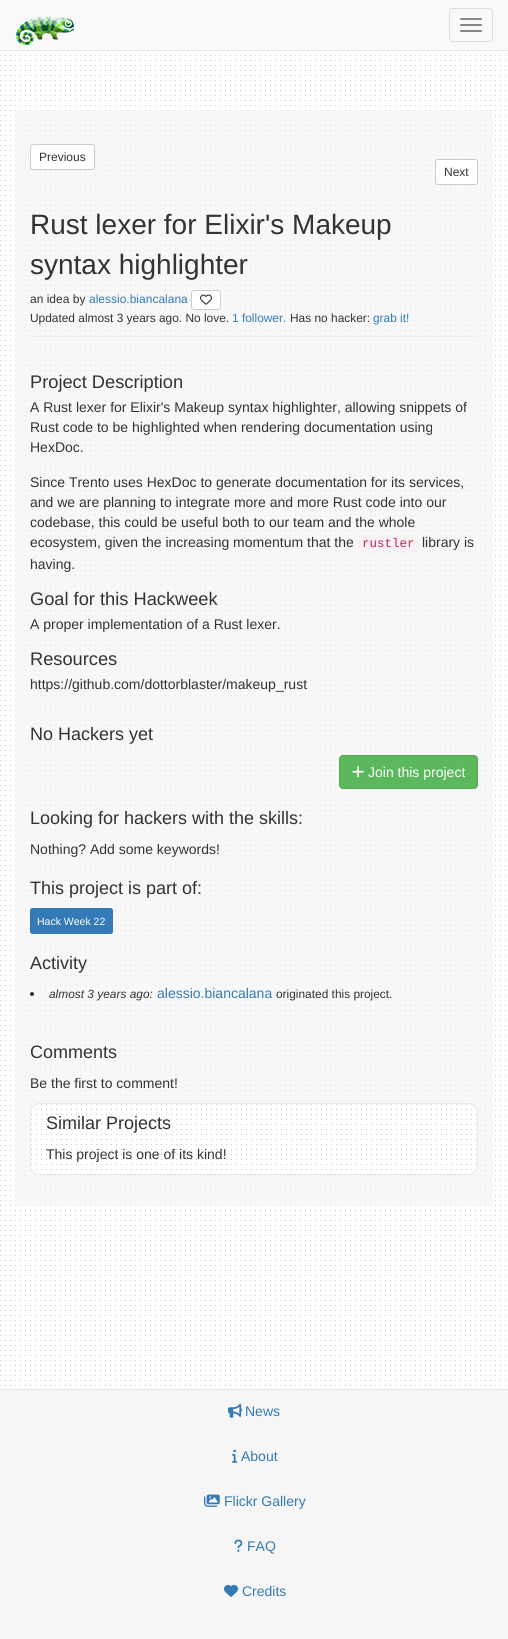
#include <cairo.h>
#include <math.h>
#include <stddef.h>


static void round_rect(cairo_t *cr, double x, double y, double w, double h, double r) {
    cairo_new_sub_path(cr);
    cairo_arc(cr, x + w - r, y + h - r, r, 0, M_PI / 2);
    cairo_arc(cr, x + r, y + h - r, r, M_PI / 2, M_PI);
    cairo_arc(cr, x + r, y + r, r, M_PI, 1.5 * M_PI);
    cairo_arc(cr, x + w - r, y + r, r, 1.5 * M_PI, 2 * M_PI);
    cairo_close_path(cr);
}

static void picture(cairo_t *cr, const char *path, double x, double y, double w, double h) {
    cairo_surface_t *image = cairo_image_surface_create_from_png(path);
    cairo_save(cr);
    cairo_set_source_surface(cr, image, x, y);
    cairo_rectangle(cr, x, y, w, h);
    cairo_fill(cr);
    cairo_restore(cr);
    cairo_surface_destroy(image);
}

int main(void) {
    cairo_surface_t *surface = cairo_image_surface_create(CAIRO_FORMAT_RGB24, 508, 1639);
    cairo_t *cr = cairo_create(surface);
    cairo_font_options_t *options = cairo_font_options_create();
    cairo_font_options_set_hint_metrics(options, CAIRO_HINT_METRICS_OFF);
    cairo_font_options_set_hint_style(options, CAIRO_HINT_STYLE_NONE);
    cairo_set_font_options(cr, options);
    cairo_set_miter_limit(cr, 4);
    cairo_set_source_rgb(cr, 1, 1, 1);
    cairo_paint(cr);
    picture(cr, "img1.png", 0, 51, 506, 1338);
    cairo_set_source_rgb(cr, 0.973, 0.973, 0.973);
    cairo_rectangle(cr, 0, 0, 508, 50);
    cairo_fill(cr);
    cairo_set_source_rgb(cr, 0.906, 0.906, 0.906);
    cairo_rectangle(cr, 0, 50, 508, 1);
    cairo_fill(cr);
    picture(cr, "img2.png", 16, 16, 58, 29);
    round_rect(cr, 449.5, 8.5, 43, 33, 3.5);
    cairo_set_source_rgb(cr, 0.867, 0.867, 0.867);
    cairo_set_line_width(cr, 1);
    cairo_stroke(cr);
    cairo_set_source_rgb(cr, 0.533, 0.533, 0.533);
    round_rect(cr, 460, 18, 22, 2, 1);
    cairo_fill(cr);
    round_rect(cr, 460, 24, 22, 2, 1);
    cairo_fill(cr);
    round_rect(cr, 460, 30, 22, 2, 1);
    cairo_fill(cr);
    cairo_set_source_rgba(cr, 0.965, 0.965, 0.965, 0.7);
    cairo_rectangle(cr, 15, 110, 478, 1096);
    cairo_fill(cr);
    cairo_set_source_rgb(cr, 1, 1, 1);
    round_rect(cr, 30.5, 144.5, 64, 25, 2.5);
    cairo_fill_preserve(cr);
    cairo_set_source_rgb(cr, 0.8, 0.8, 0.8);
    cairo_stroke(cr);
    cairo_select_font_face(cr, "Liberation Sans", CAIRO_FONT_SLANT_NORMAL, CAIRO_FONT_WEIGHT_NORMAL);
    cairo_set_font_size(cr, 12);
    cairo_set_source_rgb(cr, 0.2, 0.2, 0.2);
    cairo_move_to(cr, 39, 161);
    cairo_show_text(cr, "Previous");
    cairo_set_source_rgb(cr, 1, 1, 1);
    round_rect(cr, 435.5, 159.5, 42, 25, 2.5);
    cairo_fill_preserve(cr);
    cairo_set_source_rgb(cr, 0.8, 0.8, 0.8);
    cairo_stroke(cr);
    cairo_set_source_rgb(cr, 0.2, 0.2, 0.2);
    cairo_move_to(cr, 444, 176);
    cairo_show_text(cr, "Next");
    cairo_set_source_rgb(cr, 0.933, 0.933, 0.933);
    cairo_rectangle(cr, 30, 336, 448, 1);
    cairo_fill(cr);
    cairo_set_font_size(cr, 28);
    cairo_set_source_rgb(cr, 0.2, 0.2, 0.2);
    cairo_move_to(cr, 30, 234);
    cairo_show_text(cr, "Rust lexer for Elixir's Makeup");
    cairo_move_to(cr, 30, 274);
    cairo_show_text(cr, "syntax highlighter");
    cairo_set_font_size(cr, 12);
    cairo_move_to(cr, 30, 303);
    cairo_show_text(cr, "an idea by");
    cairo_set_source_rgb(cr, 0.2, 0.478, 0.718);
    cairo_move_to(cr, 89, 303);
    cairo_show_text(cr, "alessio.biancalana");
    cairo_set_source_rgb(cr, 1, 1, 1);
    round_rect(cr, 191.5, 290.5, 29, 19, 2.5);
    cairo_fill_preserve(cr);
    cairo_set_source_rgb(cr, 0.8, 0.8, 0.8);
    cairo_stroke(cr);
    picture(cr, "img3.png", 200, 294, 12, 11);
    cairo_set_font_size(cr, 11.9);
    cairo_set_source_rgb(cr, 0.2, 0.2, 0.2);
    cairo_move_to(cr, 30, 322);
    cairo_show_text(cr, "Updated almost 3 years ago. No love.");
    cairo_set_source_rgb(cr, 0.2, 0.478, 0.718);
    cairo_move_to(cr, 232, 322);
    cairo_show_text(cr, "1 follower.");
    cairo_set_source_rgb(cr, 0.2, 0.2, 0.2);
    cairo_move_to(cr, 290, 322);
    cairo_show_text(cr, "Has no hacker:");
    cairo_set_source_rgb(cr, 0.2, 0.478, 0.718);
    cairo_move_to(cr, 373, 322);
    cairo_show_text(cr, "grab it!");
    cairo_set_font_size(cr, 18.25);
    cairo_set_source_rgb(cr, 0.2, 0.2, 0.2);
    cairo_move_to(cr, 30, 388);
    cairo_show_text(cr, "Project Description");
    cairo_set_font_size(cr, 14);
    cairo_move_to(cr, 30, 412);
    cairo_show_text(cr, "A Rust lexer for Elixir's Makeup syntax highlighter, allowing snippets of");
    cairo_move_to(cr, 30, 432);
    cairo_show_text(cr, "Rust code to be highlighted when rendering documentation using");
    cairo_move_to(cr, 30, 452);
    cairo_show_text(cr, "HexDoc.");
    cairo_move_to(cr, 30, 487);
    cairo_show_text(cr, "Since Trento uses HexDoc to generate documentation for its services,");
    cairo_move_to(cr, 30, 507);
    cairo_show_text(cr, "and we are planning to integrate more and more Rust code into our");
    cairo_move_to(cr, 30, 527);
    cairo_show_text(cr, "codebase, this could be useful both to our team and the whole");
    cairo_move_to(cr, 30, 547);
    cairo_show_text(cr, "ecosystem, given the increasing momentum that the");
    cairo_set_source_rgb(cr, 0.976, 0.949, 0.957);
    round_rect(cr, 358, 535, 61, 18, 4);
    cairo_fill(cr);
    cairo_select_font_face(cr, "Liberation Mono", CAIRO_FONT_SLANT_NORMAL, CAIRO_FONT_WEIGHT_NORMAL);
    cairo_set_font_size(cr, 12.5);
    cairo_set_source_rgb(cr, 0.78, 0.145, 0.306);
    cairo_move_to(cr, 362, 547);
    cairo_show_text(cr, "rustler");
    cairo_select_font_face(cr, "Liberation Sans", CAIRO_FONT_SLANT_NORMAL, CAIRO_FONT_WEIGHT_NORMAL);
    cairo_set_font_size(cr, 14);
    cairo_set_source_rgb(cr, 0.2, 0.2, 0.2);
    cairo_move_to(cr, 422, 547);
    cairo_show_text(cr, "library is");
    cairo_move_to(cr, 30, 569);
    cairo_show_text(cr, "having.");
    cairo_set_font_size(cr, 18.25);
    cairo_move_to(cr, 30, 605);
    cairo_show_text(cr, "Goal for this Hackweek");
    cairo_set_font_size(cr, 14);
    cairo_move_to(cr, 30, 629);
    cairo_show_text(cr, "A proper implementation of a Rust lexer.");
    cairo_set_font_size(cr, 18.25);
    cairo_move_to(cr, 30, 665);
    cairo_show_text(cr, "Resources");
    cairo_set_font_size(cr, 14);
    cairo_move_to(cr, 30, 689);
    cairo_show_text(cr, "https://github.com/dottorblaster/makeup_rust");
    cairo_set_font_size(cr, 18);
    cairo_move_to(cr, 30, 740);
    cairo_show_text(cr, "No Hackers yet");
    cairo_set_source_rgb(cr, 0.361, 0.722, 0.361);
    round_rect(cr, 339.5, 755.5, 138, 33, 3.5);
    cairo_fill_preserve(cr);
    cairo_set_source_rgb(cr, 0.298, 0.682, 0.298);
    cairo_stroke(cr);
    picture(cr, "img4.png", 352, 766, 12, 12);
    cairo_set_font_size(cr, 14);
    cairo_set_source_rgb(cr, 1, 1, 1);
    cairo_move_to(cr, 368, 777);
    cairo_show_text(cr, "Join this project");
    cairo_set_font_size(cr, 18);
    cairo_set_source_rgb(cr, 0.2, 0.2, 0.2);
    cairo_move_to(cr, 30, 824);
    cairo_show_text(cr, "Looking for hackers with the skills:");
    cairo_set_font_size(cr, 14);
    cairo_move_to(cr, 30, 854);
    cairo_show_text(cr, "Nothing? Add some keywords!");
    cairo_set_font_size(cr, 18);
    cairo_move_to(cr, 30, 894);
    cairo_show_text(cr, "This project is part of:");
    cairo_set_source_rgb(cr, 0.2, 0.478, 0.718);
    round_rect(cr, 30, 908, 83, 26, 2.5);
    cairo_fill(cr);
    cairo_set_font_size(cr, 10.5);
    cairo_set_source_rgb(cr, 1, 1, 1);
    cairo_move_to(cr, 37, 925);
    cairo_show_text(cr, "Hack Week 22");
    cairo_set_font_size(cr, 18);
    cairo_set_source_rgb(cr, 0.2, 0.2, 0.2);
    cairo_move_to(cr, 30, 969);
    cairo_show_text(cr, "Activity");
    cairo_new_path(cr);
    cairo_arc(cr, 32, 994, 2, 0, 2 * M_PI);
    cairo_fill(cr);
    cairo_select_font_face(cr, "Liberation Sans", CAIRO_FONT_SLANT_ITALIC, CAIRO_FONT_WEIGHT_NORMAL);
    cairo_set_font_size(cr, 11.9);
    cairo_move_to(cr, 49, 998);
    cairo_show_text(cr, "almost 3 years ago:");
    cairo_select_font_face(cr, "Liberation Sans", CAIRO_FONT_SLANT_NORMAL, CAIRO_FONT_WEIGHT_NORMAL);
    cairo_set_font_size(cr, 14);
    cairo_set_source_rgb(cr, 0.2, 0.478, 0.718);
    cairo_move_to(cr, 157, 998);
    cairo_show_text(cr, "alessio.biancalana");
    cairo_set_font_size(cr, 11.9);
    cairo_set_source_rgb(cr, 0.2, 0.2, 0.2);
    cairo_move_to(cr, 276, 998);
    cairo_show_text(cr, "originated this project.");
    cairo_set_font_size(cr, 18);
    cairo_move_to(cr, 30, 1058);
    cairo_show_text(cr, "Comments");
    cairo_set_font_size(cr, 14);
    cairo_move_to(cr, 30, 1088);
    cairo_show_text(cr, "Be the first to comment!");
    picture(cr, "img5.png", 30, 1103, 448, 72);
    round_rect(cr, 30.5, 1103.5, 447, 71, 9.5);
    cairo_set_source_rgb(cr, 0.914, 0.914, 0.914);
    cairo_stroke(cr);
    cairo_set_font_size(cr, 18);
    cairo_set_source_rgb(cr, 0.2, 0.2, 0.2);
    cairo_move_to(cr, 46, 1129);
    cairo_show_text(cr, "Similar Projects");
    cairo_set_font_size(cr, 14);
    cairo_move_to(cr, 46, 1159);
    cairo_show_text(cr, "This project is one of its kind!");
    cairo_set_source_rgb(cr, 0.961, 0.961, 0.961);
    cairo_rectangle(cr, 0, 1390, 508, 249);
    cairo_fill(cr);
    cairo_set_source_rgb(cr, 0.898, 0.898, 0.898);
    cairo_rectangle(cr, 0, 1389, 508, 1);
    cairo_fill(cr);
    picture(cr, "img6.png", 228, 1403, 14, 15);
    cairo_set_source_rgb(cr, 0.2, 0.478, 0.718);
    cairo_move_to(cr, 245, 1416);
    cairo_show_text(cr, "News");
    picture(cr, "img7.png", 232, 1449, 6, 14);
    cairo_move_to(cr, 241, 1461);
    cairo_show_text(cr, "About");
    picture(cr, "img8.png", 204, 1494, 16, 13);
    cairo_move_to(cr, 224, 1506);
    cairo_show_text(cr, "Flickr Gallery");
    picture(cr, "img9.png", 234, 1539, 9, 13);
    cairo_move_to(cr, 247, 1551);
    cairo_show_text(cr, "FAQ");
    picture(cr, "img10.png", 224, 1584, 14, 13);
    cairo_move_to(cr, 242, 1596);
    cairo_show_text(cr, "Credits");
    cairo_surface_write_to_png(surface, "page.png");
    cairo_font_options_destroy(options);
    cairo_destroy(cr);
    cairo_surface_destroy(surface);
    return 0;
}
